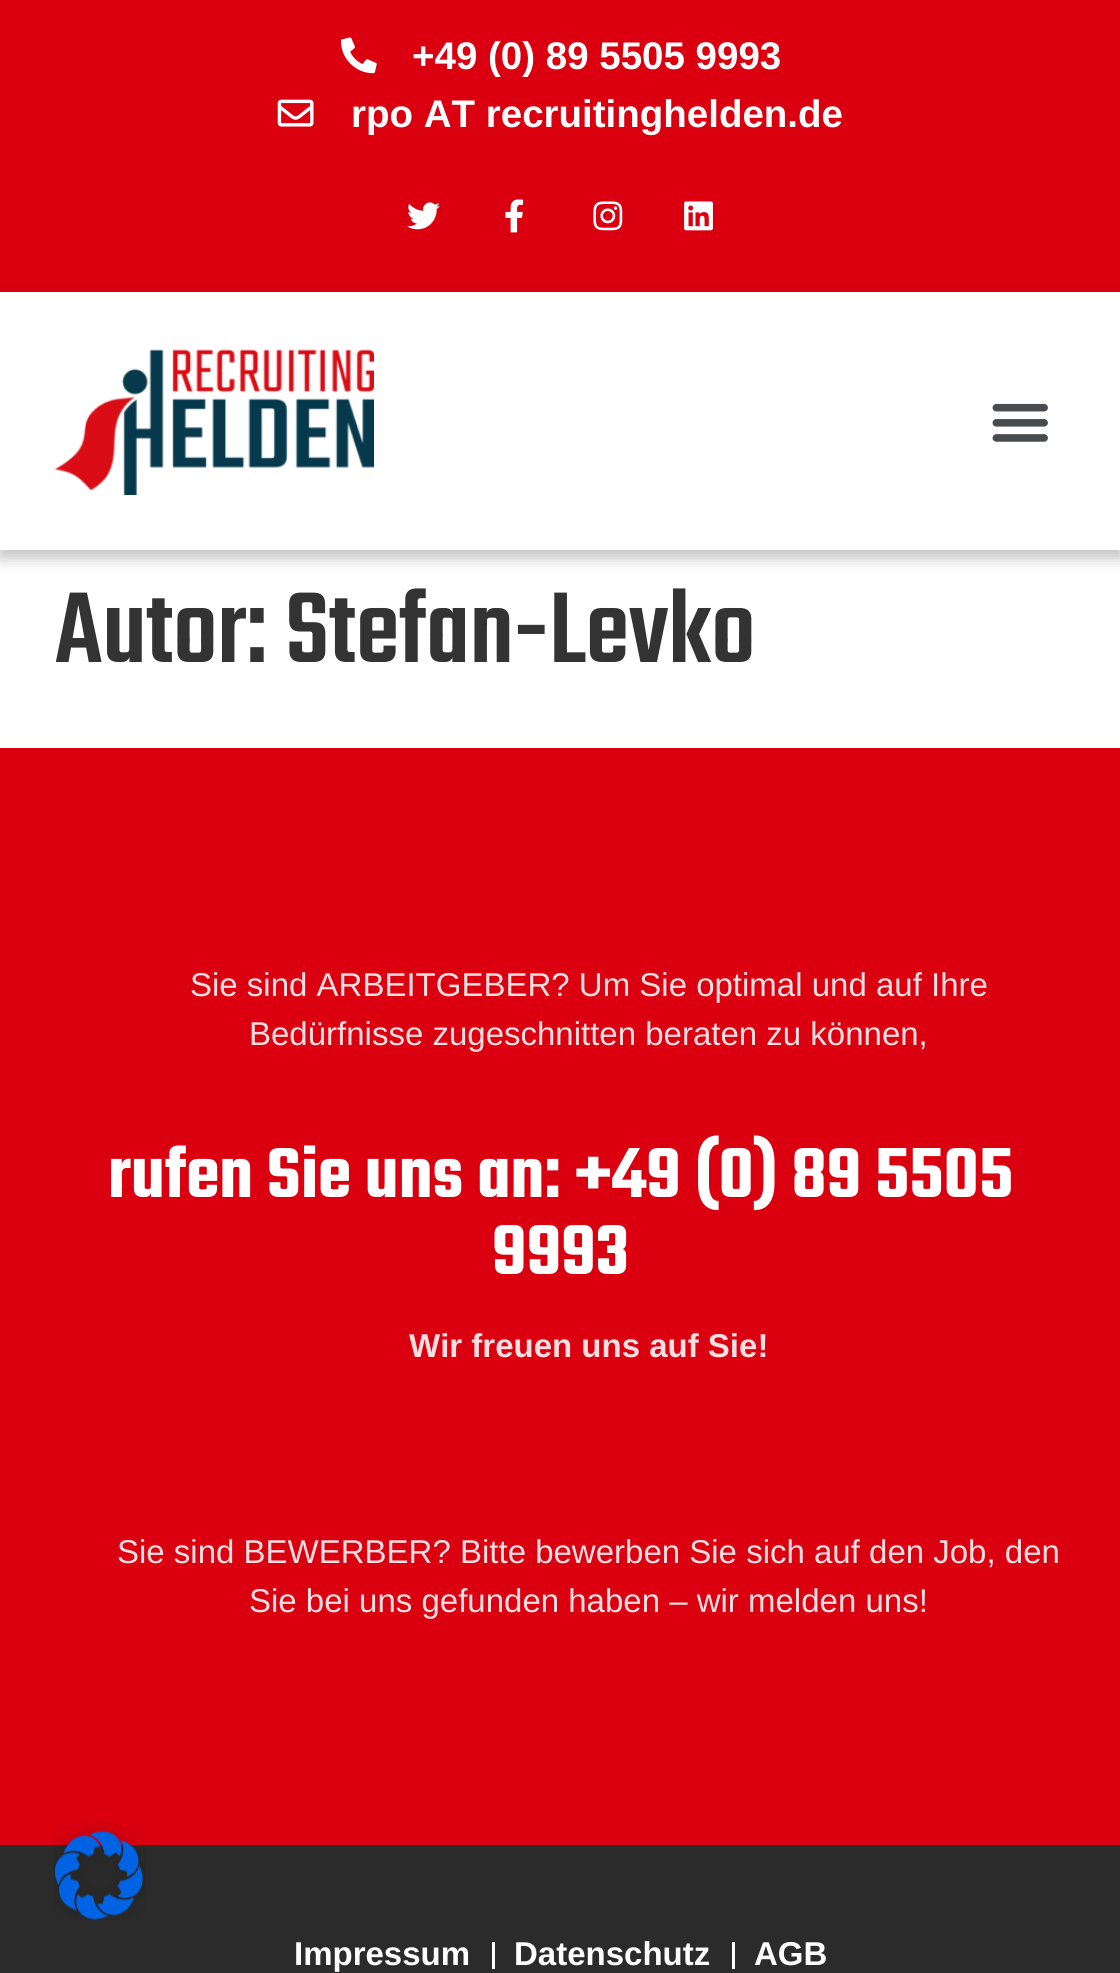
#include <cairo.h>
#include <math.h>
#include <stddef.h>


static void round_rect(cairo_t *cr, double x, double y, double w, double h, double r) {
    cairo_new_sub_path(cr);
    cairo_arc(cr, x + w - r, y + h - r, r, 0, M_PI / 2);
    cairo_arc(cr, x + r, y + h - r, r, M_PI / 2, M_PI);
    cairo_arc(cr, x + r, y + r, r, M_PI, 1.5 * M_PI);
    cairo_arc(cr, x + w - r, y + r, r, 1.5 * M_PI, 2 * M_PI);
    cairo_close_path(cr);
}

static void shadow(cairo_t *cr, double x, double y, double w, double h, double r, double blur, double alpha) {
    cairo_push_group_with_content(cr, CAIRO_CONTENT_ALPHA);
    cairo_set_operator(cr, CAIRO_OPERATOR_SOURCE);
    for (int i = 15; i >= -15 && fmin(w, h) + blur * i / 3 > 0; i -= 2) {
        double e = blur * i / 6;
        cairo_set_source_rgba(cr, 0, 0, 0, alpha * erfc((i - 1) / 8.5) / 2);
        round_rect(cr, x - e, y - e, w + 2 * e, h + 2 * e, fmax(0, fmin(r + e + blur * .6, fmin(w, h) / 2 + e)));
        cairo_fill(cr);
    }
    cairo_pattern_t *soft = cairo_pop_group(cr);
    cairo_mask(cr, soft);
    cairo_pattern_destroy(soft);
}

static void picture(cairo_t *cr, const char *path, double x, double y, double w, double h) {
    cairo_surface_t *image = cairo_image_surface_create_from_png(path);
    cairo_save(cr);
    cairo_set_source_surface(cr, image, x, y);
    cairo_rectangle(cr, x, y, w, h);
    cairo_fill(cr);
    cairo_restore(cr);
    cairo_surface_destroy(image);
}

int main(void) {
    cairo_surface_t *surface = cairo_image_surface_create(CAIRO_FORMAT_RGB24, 1120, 1973);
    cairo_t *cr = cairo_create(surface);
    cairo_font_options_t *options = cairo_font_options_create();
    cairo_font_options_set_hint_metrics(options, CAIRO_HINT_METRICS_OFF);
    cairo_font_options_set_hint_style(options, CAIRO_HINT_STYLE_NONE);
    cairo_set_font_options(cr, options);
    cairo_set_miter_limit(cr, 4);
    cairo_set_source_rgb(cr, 1, 1, 1);
    cairo_paint(cr);
    cairo_set_source_rgb(cr, 0.855, 0, 0.063);
    cairo_rectangle(cr, 0, 0, 1120, 292);
    cairo_fill(cr);
    picture(cr, "img1.png", 341, 37, 36, 37);
    cairo_select_font_face(cr, "Liberation Sans", CAIRO_FONT_SLANT_NORMAL, CAIRO_FONT_WEIGHT_BOLD);
    cairo_set_font_size(cr, 38.5);
    cairo_set_source_rgb(cr, 1, 1, 1);
    cairo_move_to(cr, 412, 69);
    cairo_show_text(cr, "+49 (0) 89 5505 9993");
    picture(cr, "img2.png", 277, 99, 37, 28);
    cairo_move_to(cr, 351, 127);
    cairo_show_text(cr, "rpo AT recruitinghelden.de");
    picture(cr, "img3.png", 407, 202, 33, 28);
    picture(cr, "img4.png", 505, 199, 19, 34);
    picture(cr, "img5.png", 593, 201, 30, 30);
    picture(cr, "img6.png", 684, 201, 29, 30);
    cairo_save(cr);
    cairo_set_fill_rule(cr, CAIRO_FILL_RULE_EVEN_ODD);
    cairo_new_path(cr);
    cairo_move_to(cr, 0, 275);
    cairo_line_to(cr, 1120, 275);
    cairo_line_to(cr, 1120, 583);
    cairo_line_to(cr, 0, 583);
    cairo_close_path(cr);
    cairo_move_to(cr, 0, 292);
    cairo_line_to(cr, 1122, 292);
    cairo_line_to(cr, 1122, 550);
    cairo_line_to(cr, 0, 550);
    cairo_close_path(cr);
    cairo_clip(cr);
    cairo_set_source_rgb(cr, 0, 0, 0);
    shadow(cr, 0, 300, 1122, 258, 0, 8, 0.25);
    cairo_restore(cr);
    picture(cr, "img7.png", 55, 349, 319, 146);
    picture(cr, "img8.png", 992, 403, 56, 39);
    cairo_select_font_face(cr, "Teko Medium", CAIRO_FONT_SLANT_NORMAL, CAIRO_FONT_WEIGHT_NORMAL);
    cairo_set_font_size(cr, 110);
    cairo_set_source_rgb(cr, 0.2, 0.2, 0.2);
    cairo_move_to(cr, 55, 662);
    cairo_show_text(cr, "Autor: Stefan-Levko");
    cairo_set_source_rgb(cr, 0.855, 0, 0.063);
    cairo_rectangle(cr, 0, 748, 1120, 1097);
    cairo_fill(cr);
    cairo_set_source_rgb(cr, 0.169, 0.169, 0.169);
    cairo_rectangle(cr, 0, 1845, 1120, 128);
    cairo_fill(cr);
    picture(cr, "img9.png", 53, 1821, 93, 99);
    cairo_select_font_face(cr, "Liberation Sans", CAIRO_FONT_SLANT_NORMAL, CAIRO_FONT_WEIGHT_NORMAL);
    cairo_set_font_size(cr, 33);
    cairo_set_source_rgb(cr, 0.98, 0.871, 0.878);
    cairo_move_to(cr, 190, 996);
    cairo_show_text(cr, "Sie sind ARBEITGEBER? Um Sie optimal und auf Ihre");
    cairo_move_to(cr, 249, 1045);
    cairo_show_text(cr, "Bedürfnisse zugeschnitten beraten zu können,");
    cairo_select_font_face(cr, "Teko SemiBold", CAIRO_FONT_SLANT_NORMAL, CAIRO_FONT_WEIGHT_NORMAL);
    cairo_set_font_size(cr, 77);
    cairo_set_source_rgb(cr, 1, 1, 1);
    cairo_move_to(cr, 108, 1197);
    cairo_show_text(cr, "rufen Sie uns an: +49 (0) 89 5505");
    cairo_move_to(cr, 492, 1274);
    cairo_show_text(cr, "9993");
    cairo_select_font_face(cr, "Liberation Sans", CAIRO_FONT_SLANT_NORMAL, CAIRO_FONT_WEIGHT_BOLD);
    cairo_set_font_size(cr, 33);
    cairo_set_source_rgb(cr, 0.98, 0.871, 0.878);
    cairo_move_to(cr, 409, 1357);
    cairo_show_text(cr, "Wir freuen uns auf Sie!");
    cairo_select_font_face(cr, "Liberation Sans", CAIRO_FONT_SLANT_NORMAL, CAIRO_FONT_WEIGHT_NORMAL);
    cairo_move_to(cr, 117, 1563);
    cairo_show_text(cr, "Sie sind BEWERBER? Bitte bewerben Sie sich auf den Job, den");
    cairo_move_to(cr, 249, 1612);
    cairo_show_text(cr, "Sie bei uns gefunden haben – wir melden uns!");
    cairo_select_font_face(cr, "Liberation Sans", CAIRO_FONT_SLANT_NORMAL, CAIRO_FONT_WEIGHT_BOLD);
    cairo_set_source_rgb(cr, 1, 1, 1);
    cairo_move_to(cr, 294, 1965);
    cairo_show_text(cr, "Impressum");
    cairo_rectangle(cr, 492, 1942, 3, 27);
    cairo_fill(cr);
    cairo_move_to(cr, 514, 1965);
    cairo_show_text(cr, "Datenschutz");
    cairo_rectangle(cr, 732, 1942, 3, 27);
    cairo_fill(cr);
    cairo_move_to(cr, 754, 1965);
    cairo_show_text(cr, "AGB");
    cairo_surface_write_to_png(surface, "page.png");
    cairo_font_options_destroy(options);
    cairo_destroy(cr);
    cairo_surface_destroy(surface);
    return 0;
}
